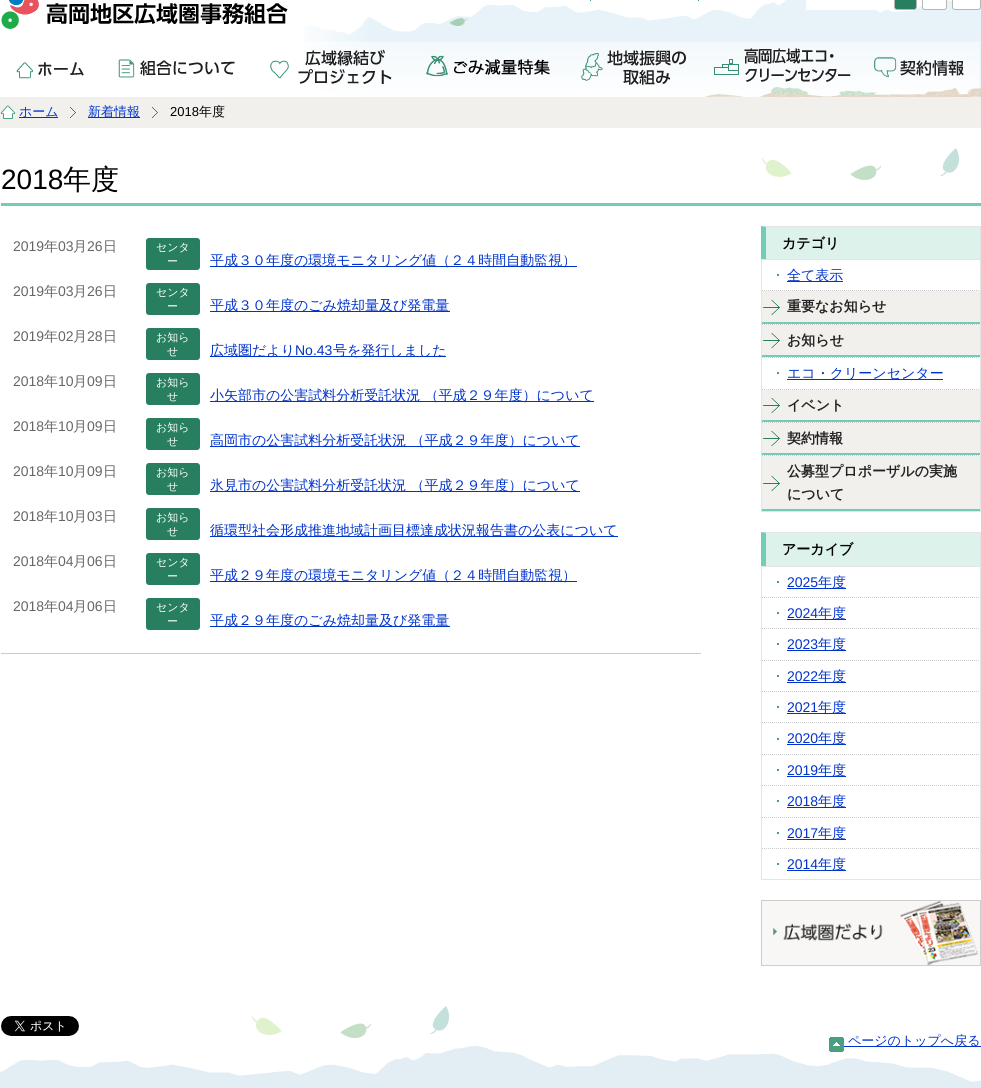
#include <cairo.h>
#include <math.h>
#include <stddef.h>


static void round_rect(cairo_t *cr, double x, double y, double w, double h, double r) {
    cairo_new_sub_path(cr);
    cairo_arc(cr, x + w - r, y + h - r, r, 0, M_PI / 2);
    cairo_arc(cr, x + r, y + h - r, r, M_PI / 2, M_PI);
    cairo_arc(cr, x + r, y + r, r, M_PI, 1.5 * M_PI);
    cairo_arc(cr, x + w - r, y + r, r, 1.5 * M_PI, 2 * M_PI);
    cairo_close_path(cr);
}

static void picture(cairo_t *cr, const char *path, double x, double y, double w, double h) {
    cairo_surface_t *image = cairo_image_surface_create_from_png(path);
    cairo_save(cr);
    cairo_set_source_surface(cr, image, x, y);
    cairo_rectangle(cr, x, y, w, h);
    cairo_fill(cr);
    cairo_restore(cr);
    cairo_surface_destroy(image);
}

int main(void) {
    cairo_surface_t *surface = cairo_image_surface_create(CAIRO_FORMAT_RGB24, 981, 1088);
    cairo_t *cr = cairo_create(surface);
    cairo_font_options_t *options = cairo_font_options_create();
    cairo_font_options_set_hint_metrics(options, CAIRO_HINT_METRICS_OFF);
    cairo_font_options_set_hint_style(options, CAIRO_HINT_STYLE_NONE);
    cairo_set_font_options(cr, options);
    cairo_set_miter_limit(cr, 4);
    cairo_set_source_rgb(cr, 1, 1, 1);
    cairo_paint(cr);
    picture(cr, "img1.png", 304, 0, 677, 97);
    cairo_set_source_rgb(cr, 0.949, 0.941, 0.925);
    cairo_rectangle(cr, 0, 97, 981, 31);
    cairo_fill(cr);
    picture(cr, "img2.png", 1, 0, 38, 29);
    picture(cr, "img3.png", 46, 3, 242, 21);
    cairo_set_source_rgb(cr, 0.282, 0.624, 0.506);
    cairo_rectangle(cr, 590, 0, 1, 1);
    cairo_fill(cr);
    cairo_rectangle(cr, 698, 0, 1, 1);
    cairo_fill(cr);
    cairo_set_source_rgb(cr, 1, 1, 1);
    cairo_rectangle(cr, 806, 0, 70, 10);
    cairo_fill(cr);
    cairo_set_source_rgb(cr, 0.153, 0.498, 0.376);
    round_rect(cr, 894.5, -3.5, 22, 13, 2.5);
    cairo_fill_preserve(cr);
    cairo_set_source_rgb(cr, 0.714, 0.714, 0.714);
    cairo_set_line_width(cr, 1);
    cairo_stroke(cr);
    cairo_set_source_rgb(cr, 1, 1, 1);
    round_rect(cr, 922.5, -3.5, 24, 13, 2.5);
    cairo_fill_preserve(cr);
    cairo_set_source_rgb(cr, 0.714, 0.714, 0.714);
    cairo_stroke(cr);
    cairo_set_source_rgb(cr, 1, 1, 1);
    round_rect(cr, 952.5, -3.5, 28, 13, 2.5);
    cairo_fill_preserve(cr);
    cairo_set_source_rgb(cr, 0.714, 0.714, 0.714);
    cairo_stroke(cr);
    picture(cr, "img4.png", 16, 62, 68, 17);
    picture(cr, "img5.png", 118, 59, 117, 19);
    picture(cr, "img6.png", 270, 49, 122, 35);
    picture(cr, "img7.png", 426, 55, 124, 22);
    picture(cr, "img8.png", 581, 50, 105, 35);
    picture(cr, "img9.png", 714, 48, 137, 34);
    picture(cr, "img10.png", 874, 57, 90, 20);
    picture(cr, "img11.png", 1, 105, 14, 14);
    cairo_set_source_rgb(cr, 0, 0.2, 0.8);
    cairo_rectangle(cr, 19, 117, 39, 1);
    cairo_fill(cr);
    cairo_select_font_face(cr, "WenQuanYi Zen Hei Medium", CAIRO_FONT_SLANT_NORMAL, CAIRO_FONT_WEIGHT_NORMAL);
    cairo_set_font_size(cr, 13);
    cairo_move_to(cr, 19, 116);
    cairo_show_text(cr, "ホーム");
    picture(cr, "img12.png", 70, 107, 6, 11);
    cairo_rectangle(cr, 88, 117, 52, 1);
    cairo_fill(cr);
    cairo_move_to(cr, 88, 116);
    cairo_show_text(cr, "新着情報");
    picture(cr, "img12.png", 152, 107, 6, 11);
    cairo_select_font_face(cr, "Liberation Sans", CAIRO_FONT_SLANT_NORMAL, CAIRO_FONT_WEIGHT_NORMAL);
    cairo_set_source_rgb(cr, 0, 0, 0);
    cairo_move_to(cr, 170, 116);
    cairo_show_text(cr, "2018");
    cairo_select_font_face(cr, "WenQuanYi Zen Hei Medium", CAIRO_FONT_SLANT_NORMAL, CAIRO_FONT_WEIGHT_NORMAL);
    cairo_move_to(cr, 199, 116);
    cairo_show_text(cr, "年度");
    picture(cr, "img13.png", 761, 148, 198, 32);
    cairo_set_source_rgb(cr, 0.451, 0.8, 0.714);
    cairo_rectangle(cr, 1, 203, 980, 3);
    cairo_fill(cr);
    cairo_select_font_face(cr, "Liberation Sans", CAIRO_FONT_SLANT_NORMAL, CAIRO_FONT_WEIGHT_NORMAL);
    cairo_set_font_size(cr, 28);
    cairo_set_source_rgb(cr, 0, 0, 0);
    cairo_move_to(cr, 1, 189);
    cairo_show_text(cr, "2018");
    cairo_select_font_face(cr, "WenQuanYi Zen Hei Medium", CAIRO_FONT_SLANT_NORMAL, CAIRO_FONT_WEIGHT_NORMAL);
    cairo_move_to(cr, 63, 189);
    cairo_show_text(cr, "年度");
    cairo_select_font_face(cr, "Liberation Sans", CAIRO_FONT_SLANT_NORMAL, CAIRO_FONT_WEIGHT_NORMAL);
    cairo_set_font_size(cr, 14);
    cairo_set_source_rgb(cr, 0.4, 0.4, 0.4);
    cairo_move_to(cr, 13, 251);
    cairo_show_text(cr, "2019");
    cairo_select_font_face(cr, "WenQuanYi Zen Hei Medium", CAIRO_FONT_SLANT_NORMAL, CAIRO_FONT_WEIGHT_NORMAL);
    cairo_move_to(cr, 44, 251);
    cairo_show_text(cr, "年");
    cairo_select_font_face(cr, "Liberation Sans", CAIRO_FONT_SLANT_NORMAL, CAIRO_FONT_WEIGHT_NORMAL);
    cairo_move_to(cr, 58, 251);
    cairo_show_text(cr, "03");
    cairo_select_font_face(cr, "WenQuanYi Zen Hei Medium", CAIRO_FONT_SLANT_NORMAL, CAIRO_FONT_WEIGHT_NORMAL);
    cairo_move_to(cr, 73, 251);
    cairo_show_text(cr, "月");
    cairo_select_font_face(cr, "Liberation Sans", CAIRO_FONT_SLANT_NORMAL, CAIRO_FONT_WEIGHT_NORMAL);
    cairo_move_to(cr, 87, 251);
    cairo_show_text(cr, "26");
    cairo_select_font_face(cr, "WenQuanYi Zen Hei Medium", CAIRO_FONT_SLANT_NORMAL, CAIRO_FONT_WEIGHT_NORMAL);
    cairo_move_to(cr, 103, 251);
    cairo_show_text(cr, "日");
    cairo_set_source_rgb(cr, 0.153, 0.498, 0.376);
    round_rect(cr, 146, 238, 54, 32, 3);
    cairo_fill(cr);
    cairo_set_font_size(cr, 11);
    cairo_set_source_rgb(cr, 1, 1, 1);
    cairo_move_to(cr, 156, 251);
    cairo_show_text(cr, "センタ");
    cairo_move_to(cr, 167, 265);
    cairo_show_text(cr, "ー");
    cairo_set_source_rgb(cr, 0, 0.2, 0.8);
    cairo_rectangle(cr, 210, 266, 367, 1);
    cairo_fill(cr);
    cairo_set_font_size(cr, 14);
    cairo_move_to(cr, 210, 265);
    cairo_show_text(cr, "平成３０年度の環境モニタリング値（２４時間自動監視）");
    cairo_select_font_face(cr, "Liberation Sans", CAIRO_FONT_SLANT_NORMAL, CAIRO_FONT_WEIGHT_NORMAL);
    cairo_set_source_rgb(cr, 0.4, 0.4, 0.4);
    cairo_move_to(cr, 13, 296);
    cairo_show_text(cr, "2019");
    cairo_select_font_face(cr, "WenQuanYi Zen Hei Medium", CAIRO_FONT_SLANT_NORMAL, CAIRO_FONT_WEIGHT_NORMAL);
    cairo_move_to(cr, 44, 296);
    cairo_show_text(cr, "年");
    cairo_select_font_face(cr, "Liberation Sans", CAIRO_FONT_SLANT_NORMAL, CAIRO_FONT_WEIGHT_NORMAL);
    cairo_move_to(cr, 58, 296);
    cairo_show_text(cr, "03");
    cairo_select_font_face(cr, "WenQuanYi Zen Hei Medium", CAIRO_FONT_SLANT_NORMAL, CAIRO_FONT_WEIGHT_NORMAL);
    cairo_move_to(cr, 73, 296);
    cairo_show_text(cr, "月");
    cairo_select_font_face(cr, "Liberation Sans", CAIRO_FONT_SLANT_NORMAL, CAIRO_FONT_WEIGHT_NORMAL);
    cairo_move_to(cr, 87, 296);
    cairo_show_text(cr, "26");
    cairo_select_font_face(cr, "WenQuanYi Zen Hei Medium", CAIRO_FONT_SLANT_NORMAL, CAIRO_FONT_WEIGHT_NORMAL);
    cairo_move_to(cr, 103, 296);
    cairo_show_text(cr, "日");
    cairo_set_source_rgb(cr, 0.153, 0.498, 0.376);
    round_rect(cr, 146, 283, 54, 32, 3);
    cairo_fill(cr);
    cairo_set_font_size(cr, 11);
    cairo_set_source_rgb(cr, 1, 1, 1);
    cairo_move_to(cr, 156, 296);
    cairo_show_text(cr, "センタ");
    cairo_move_to(cr, 167, 310);
    cairo_show_text(cr, "ー");
    cairo_set_source_rgb(cr, 0, 0.2, 0.8);
    cairo_rectangle(cr, 210, 311, 240, 1);
    cairo_fill(cr);
    cairo_set_font_size(cr, 14);
    cairo_move_to(cr, 210, 310);
    cairo_show_text(cr, "平成３０年度のごみ焼却量及び発電量");
    cairo_select_font_face(cr, "Liberation Sans", CAIRO_FONT_SLANT_NORMAL, CAIRO_FONT_WEIGHT_NORMAL);
    cairo_set_source_rgb(cr, 0.4, 0.4, 0.4);
    cairo_move_to(cr, 13, 341);
    cairo_show_text(cr, "2019");
    cairo_select_font_face(cr, "WenQuanYi Zen Hei Medium", CAIRO_FONT_SLANT_NORMAL, CAIRO_FONT_WEIGHT_NORMAL);
    cairo_move_to(cr, 44, 341);
    cairo_show_text(cr, "年");
    cairo_select_font_face(cr, "Liberation Sans", CAIRO_FONT_SLANT_NORMAL, CAIRO_FONT_WEIGHT_NORMAL);
    cairo_move_to(cr, 58, 341);
    cairo_show_text(cr, "02");
    cairo_select_font_face(cr, "WenQuanYi Zen Hei Medium", CAIRO_FONT_SLANT_NORMAL, CAIRO_FONT_WEIGHT_NORMAL);
    cairo_move_to(cr, 73, 341);
    cairo_show_text(cr, "月");
    cairo_select_font_face(cr, "Liberation Sans", CAIRO_FONT_SLANT_NORMAL, CAIRO_FONT_WEIGHT_NORMAL);
    cairo_move_to(cr, 87, 341);
    cairo_show_text(cr, "28");
    cairo_select_font_face(cr, "WenQuanYi Zen Hei Medium", CAIRO_FONT_SLANT_NORMAL, CAIRO_FONT_WEIGHT_NORMAL);
    cairo_move_to(cr, 103, 341);
    cairo_show_text(cr, "日");
    cairo_set_source_rgb(cr, 0.153, 0.498, 0.376);
    round_rect(cr, 146, 328, 54, 32, 3);
    cairo_fill(cr);
    cairo_set_font_size(cr, 11);
    cairo_set_source_rgb(cr, 1, 1, 1);
    cairo_move_to(cr, 156, 341);
    cairo_show_text(cr, "お知ら");
    cairo_move_to(cr, 167, 355);
    cairo_show_text(cr, "せ");
    cairo_set_source_rgb(cr, 0, 0.2, 0.8);
    cairo_rectangle(cr, 210, 356, 236, 1);
    cairo_fill(cr);
    cairo_set_font_size(cr, 14);
    cairo_move_to(cr, 210, 355);
    cairo_show_text(cr, "広域圏だより");
    cairo_select_font_face(cr, "Liberation Sans", CAIRO_FONT_SLANT_NORMAL, CAIRO_FONT_WEIGHT_NORMAL);
    cairo_move_to(cr, 295, 355);
    cairo_show_text(cr, "No.43");
    cairo_select_font_face(cr, "WenQuanYi Zen Hei Medium", CAIRO_FONT_SLANT_NORMAL, CAIRO_FONT_WEIGHT_NORMAL);
    cairo_move_to(cr, 333, 355);
    cairo_show_text(cr, "号を発行しました");
    cairo_select_font_face(cr, "Liberation Sans", CAIRO_FONT_SLANT_NORMAL, CAIRO_FONT_WEIGHT_NORMAL);
    cairo_set_source_rgb(cr, 0.4, 0.4, 0.4);
    cairo_move_to(cr, 13, 386);
    cairo_show_text(cr, "2018");
    cairo_select_font_face(cr, "WenQuanYi Zen Hei Medium", CAIRO_FONT_SLANT_NORMAL, CAIRO_FONT_WEIGHT_NORMAL);
    cairo_move_to(cr, 44, 386);
    cairo_show_text(cr, "年");
    cairo_select_font_face(cr, "Liberation Sans", CAIRO_FONT_SLANT_NORMAL, CAIRO_FONT_WEIGHT_NORMAL);
    cairo_move_to(cr, 58, 386);
    cairo_show_text(cr, "10");
    cairo_select_font_face(cr, "WenQuanYi Zen Hei Medium", CAIRO_FONT_SLANT_NORMAL, CAIRO_FONT_WEIGHT_NORMAL);
    cairo_move_to(cr, 73, 386);
    cairo_show_text(cr, "月");
    cairo_select_font_face(cr, "Liberation Sans", CAIRO_FONT_SLANT_NORMAL, CAIRO_FONT_WEIGHT_NORMAL);
    cairo_move_to(cr, 87, 386);
    cairo_show_text(cr, "09");
    cairo_select_font_face(cr, "WenQuanYi Zen Hei Medium", CAIRO_FONT_SLANT_NORMAL, CAIRO_FONT_WEIGHT_NORMAL);
    cairo_move_to(cr, 103, 386);
    cairo_show_text(cr, "日");
    cairo_set_source_rgb(cr, 0.153, 0.498, 0.376);
    round_rect(cr, 146, 373, 54, 32, 3);
    cairo_fill(cr);
    cairo_set_font_size(cr, 11);
    cairo_set_source_rgb(cr, 1, 1, 1);
    cairo_move_to(cr, 156, 386);
    cairo_show_text(cr, "お知ら");
    cairo_move_to(cr, 167, 400);
    cairo_show_text(cr, "せ");
    cairo_set_source_rgb(cr, 0, 0.2, 0.8);
    cairo_rectangle(cr, 210, 401, 384, 1);
    cairo_fill(cr);
    cairo_set_font_size(cr, 14);
    cairo_move_to(cr, 210, 400);
    cairo_show_text(cr, "小矢部市の公害試料分析受託状況 （平成２９年度）について");
    cairo_select_font_face(cr, "Liberation Sans", CAIRO_FONT_SLANT_NORMAL, CAIRO_FONT_WEIGHT_NORMAL);
    cairo_set_source_rgb(cr, 0.4, 0.4, 0.4);
    cairo_move_to(cr, 13, 431);
    cairo_show_text(cr, "2018");
    cairo_select_font_face(cr, "WenQuanYi Zen Hei Medium", CAIRO_FONT_SLANT_NORMAL, CAIRO_FONT_WEIGHT_NORMAL);
    cairo_move_to(cr, 44, 431);
    cairo_show_text(cr, "年");
    cairo_select_font_face(cr, "Liberation Sans", CAIRO_FONT_SLANT_NORMAL, CAIRO_FONT_WEIGHT_NORMAL);
    cairo_move_to(cr, 58, 431);
    cairo_show_text(cr, "10");
    cairo_select_font_face(cr, "WenQuanYi Zen Hei Medium", CAIRO_FONT_SLANT_NORMAL, CAIRO_FONT_WEIGHT_NORMAL);
    cairo_move_to(cr, 73, 431);
    cairo_show_text(cr, "月");
    cairo_select_font_face(cr, "Liberation Sans", CAIRO_FONT_SLANT_NORMAL, CAIRO_FONT_WEIGHT_NORMAL);
    cairo_move_to(cr, 87, 431);
    cairo_show_text(cr, "09");
    cairo_select_font_face(cr, "WenQuanYi Zen Hei Medium", CAIRO_FONT_SLANT_NORMAL, CAIRO_FONT_WEIGHT_NORMAL);
    cairo_move_to(cr, 103, 431);
    cairo_show_text(cr, "日");
    cairo_set_source_rgb(cr, 0.153, 0.498, 0.376);
    round_rect(cr, 146, 418, 54, 32, 3);
    cairo_fill(cr);
    cairo_set_font_size(cr, 11);
    cairo_set_source_rgb(cr, 1, 1, 1);
    cairo_move_to(cr, 156, 431);
    cairo_show_text(cr, "お知ら");
    cairo_move_to(cr, 167, 445);
    cairo_show_text(cr, "せ");
    cairo_set_source_rgb(cr, 0, 0.2, 0.8);
    cairo_rectangle(cr, 210, 446, 370, 1);
    cairo_fill(cr);
    cairo_set_font_size(cr, 14);
    cairo_move_to(cr, 210, 445);
    cairo_show_text(cr, "高岡市の公害試料分析受託状況 （平成２９年度）について");
    cairo_select_font_face(cr, "Liberation Sans", CAIRO_FONT_SLANT_NORMAL, CAIRO_FONT_WEIGHT_NORMAL);
    cairo_set_source_rgb(cr, 0.4, 0.4, 0.4);
    cairo_move_to(cr, 13, 476);
    cairo_show_text(cr, "2018");
    cairo_select_font_face(cr, "WenQuanYi Zen Hei Medium", CAIRO_FONT_SLANT_NORMAL, CAIRO_FONT_WEIGHT_NORMAL);
    cairo_move_to(cr, 44, 476);
    cairo_show_text(cr, "年");
    cairo_select_font_face(cr, "Liberation Sans", CAIRO_FONT_SLANT_NORMAL, CAIRO_FONT_WEIGHT_NORMAL);
    cairo_move_to(cr, 58, 476);
    cairo_show_text(cr, "10");
    cairo_select_font_face(cr, "WenQuanYi Zen Hei Medium", CAIRO_FONT_SLANT_NORMAL, CAIRO_FONT_WEIGHT_NORMAL);
    cairo_move_to(cr, 73, 476);
    cairo_show_text(cr, "月");
    cairo_select_font_face(cr, "Liberation Sans", CAIRO_FONT_SLANT_NORMAL, CAIRO_FONT_WEIGHT_NORMAL);
    cairo_move_to(cr, 87, 476);
    cairo_show_text(cr, "09");
    cairo_select_font_face(cr, "WenQuanYi Zen Hei Medium", CAIRO_FONT_SLANT_NORMAL, CAIRO_FONT_WEIGHT_NORMAL);
    cairo_move_to(cr, 103, 476);
    cairo_show_text(cr, "日");
    cairo_set_source_rgb(cr, 0.153, 0.498, 0.376);
    round_rect(cr, 146, 463, 54, 32, 3);
    cairo_fill(cr);
    cairo_set_font_size(cr, 11);
    cairo_set_source_rgb(cr, 1, 1, 1);
    cairo_move_to(cr, 156, 476);
    cairo_show_text(cr, "お知ら");
    cairo_move_to(cr, 167, 490);
    cairo_show_text(cr, "せ");
    cairo_set_source_rgb(cr, 0, 0.2, 0.8);
    cairo_rectangle(cr, 210, 491, 370, 1);
    cairo_fill(cr);
    cairo_set_font_size(cr, 14);
    cairo_move_to(cr, 210, 490);
    cairo_show_text(cr, "氷見市の公害試料分析受託状況 （平成２９年度）について");
    cairo_select_font_face(cr, "Liberation Sans", CAIRO_FONT_SLANT_NORMAL, CAIRO_FONT_WEIGHT_NORMAL);
    cairo_set_source_rgb(cr, 0.4, 0.4, 0.4);
    cairo_move_to(cr, 13, 521);
    cairo_show_text(cr, "2018");
    cairo_select_font_face(cr, "WenQuanYi Zen Hei Medium", CAIRO_FONT_SLANT_NORMAL, CAIRO_FONT_WEIGHT_NORMAL);
    cairo_move_to(cr, 44, 521);
    cairo_show_text(cr, "年");
    cairo_select_font_face(cr, "Liberation Sans", CAIRO_FONT_SLANT_NORMAL, CAIRO_FONT_WEIGHT_NORMAL);
    cairo_move_to(cr, 58, 521);
    cairo_show_text(cr, "10");
    cairo_select_font_face(cr, "WenQuanYi Zen Hei Medium", CAIRO_FONT_SLANT_NORMAL, CAIRO_FONT_WEIGHT_NORMAL);
    cairo_move_to(cr, 73, 521);
    cairo_show_text(cr, "月");
    cairo_select_font_face(cr, "Liberation Sans", CAIRO_FONT_SLANT_NORMAL, CAIRO_FONT_WEIGHT_NORMAL);
    cairo_move_to(cr, 87, 521);
    cairo_show_text(cr, "03");
    cairo_select_font_face(cr, "WenQuanYi Zen Hei Medium", CAIRO_FONT_SLANT_NORMAL, CAIRO_FONT_WEIGHT_NORMAL);
    cairo_move_to(cr, 103, 521);
    cairo_show_text(cr, "日");
    cairo_set_source_rgb(cr, 0.153, 0.498, 0.376);
    round_rect(cr, 146, 508, 54, 32, 3);
    cairo_fill(cr);
    cairo_set_font_size(cr, 11);
    cairo_set_source_rgb(cr, 1, 1, 1);
    cairo_move_to(cr, 156, 521);
    cairo_show_text(cr, "お知ら");
    cairo_move_to(cr, 167, 535);
    cairo_show_text(cr, "せ");
    cairo_set_source_rgb(cr, 0, 0.2, 0.8);
    cairo_rectangle(cr, 210, 536, 408, 1);
    cairo_fill(cr);
    cairo_set_font_size(cr, 14);
    cairo_move_to(cr, 210, 535);
    cairo_show_text(cr, "循環型社会形成推進地域計画目標達成状況報告書の公表について");
    cairo_select_font_face(cr, "Liberation Sans", CAIRO_FONT_SLANT_NORMAL, CAIRO_FONT_WEIGHT_NORMAL);
    cairo_set_source_rgb(cr, 0.4, 0.4, 0.4);
    cairo_move_to(cr, 13, 566);
    cairo_show_text(cr, "2018");
    cairo_select_font_face(cr, "WenQuanYi Zen Hei Medium", CAIRO_FONT_SLANT_NORMAL, CAIRO_FONT_WEIGHT_NORMAL);
    cairo_move_to(cr, 44, 566);
    cairo_show_text(cr, "年");
    cairo_select_font_face(cr, "Liberation Sans", CAIRO_FONT_SLANT_NORMAL, CAIRO_FONT_WEIGHT_NORMAL);
    cairo_move_to(cr, 58, 566);
    cairo_show_text(cr, "04");
    cairo_select_font_face(cr, "WenQuanYi Zen Hei Medium", CAIRO_FONT_SLANT_NORMAL, CAIRO_FONT_WEIGHT_NORMAL);
    cairo_move_to(cr, 73, 566);
    cairo_show_text(cr, "月");
    cairo_select_font_face(cr, "Liberation Sans", CAIRO_FONT_SLANT_NORMAL, CAIRO_FONT_WEIGHT_NORMAL);
    cairo_move_to(cr, 87, 566);
    cairo_show_text(cr, "06");
    cairo_select_font_face(cr, "WenQuanYi Zen Hei Medium", CAIRO_FONT_SLANT_NORMAL, CAIRO_FONT_WEIGHT_NORMAL);
    cairo_move_to(cr, 103, 566);
    cairo_show_text(cr, "日");
    cairo_set_source_rgb(cr, 0.153, 0.498, 0.376);
    round_rect(cr, 146, 553, 54, 32, 3);
    cairo_fill(cr);
    cairo_set_font_size(cr, 11);
    cairo_set_source_rgb(cr, 1, 1, 1);
    cairo_move_to(cr, 156, 566);
    cairo_show_text(cr, "センタ");
    cairo_move_to(cr, 167, 580);
    cairo_show_text(cr, "ー");
    cairo_set_source_rgb(cr, 0, 0.2, 0.8);
    cairo_rectangle(cr, 210, 581, 367, 1);
    cairo_fill(cr);
    cairo_set_font_size(cr, 14);
    cairo_move_to(cr, 210, 580);
    cairo_show_text(cr, "平成２９年度の環境モニタリング値（２４時間自動監視）");
    cairo_select_font_face(cr, "Liberation Sans", CAIRO_FONT_SLANT_NORMAL, CAIRO_FONT_WEIGHT_NORMAL);
    cairo_set_source_rgb(cr, 0.4, 0.4, 0.4);
    cairo_move_to(cr, 13, 611);
    cairo_show_text(cr, "2018");
    cairo_select_font_face(cr, "WenQuanYi Zen Hei Medium", CAIRO_FONT_SLANT_NORMAL, CAIRO_FONT_WEIGHT_NORMAL);
    cairo_move_to(cr, 44, 611);
    cairo_show_text(cr, "年");
    cairo_select_font_face(cr, "Liberation Sans", CAIRO_FONT_SLANT_NORMAL, CAIRO_FONT_WEIGHT_NORMAL);
    cairo_move_to(cr, 58, 611);
    cairo_show_text(cr, "04");
    cairo_select_font_face(cr, "WenQuanYi Zen Hei Medium", CAIRO_FONT_SLANT_NORMAL, CAIRO_FONT_WEIGHT_NORMAL);
    cairo_move_to(cr, 73, 611);
    cairo_show_text(cr, "月");
    cairo_select_font_face(cr, "Liberation Sans", CAIRO_FONT_SLANT_NORMAL, CAIRO_FONT_WEIGHT_NORMAL);
    cairo_move_to(cr, 87, 611);
    cairo_show_text(cr, "06");
    cairo_select_font_face(cr, "WenQuanYi Zen Hei Medium", CAIRO_FONT_SLANT_NORMAL, CAIRO_FONT_WEIGHT_NORMAL);
    cairo_move_to(cr, 103, 611);
    cairo_show_text(cr, "日");
    cairo_set_source_rgb(cr, 0.153, 0.498, 0.376);
    round_rect(cr, 146, 598, 54, 32, 3);
    cairo_fill(cr);
    cairo_set_font_size(cr, 11);
    cairo_set_source_rgb(cr, 1, 1, 1);
    cairo_move_to(cr, 156, 611);
    cairo_show_text(cr, "センタ");
    cairo_move_to(cr, 167, 625);
    cairo_show_text(cr, "ー");
    cairo_set_source_rgb(cr, 0, 0.2, 0.8);
    cairo_rectangle(cr, 210, 626, 240, 1);
    cairo_fill(cr);
    cairo_set_font_size(cr, 14);
    cairo_move_to(cr, 210, 625);
    cairo_show_text(cr, "平成２９年度のごみ焼却量及び発電量");
    cairo_set_source_rgb(cr, 0.8, 0.8, 0.8);
    cairo_rectangle(cr, 1, 653, 700, 1);
    cairo_fill(cr);
    cairo_set_source_rgb(cr, 0.863, 0.949, 0.918);
    cairo_rectangle(cr, 761, 226, 219, 33);
    cairo_fill(cr);
    cairo_set_source_rgb(cr, 0.898, 0.898, 0.898);
    cairo_new_path(cr);
    cairo_move_to(cr, 761, 226);
    cairo_line_to(cr, 981, 226);
    cairo_line_to(cr, 980, 227);
    cairo_line_to(cr, 766, 227);
    cairo_close_path(cr);
    cairo_fill(cr);
    cairo_rectangle(cr, 980, 226, 1, 33);
    cairo_fill(cr);
    cairo_set_source_rgb(cr, 0.451, 0.8, 0.714);
    cairo_new_path(cr);
    cairo_move_to(cr, 761, 259);
    cairo_line_to(cr, 761, 226);
    cairo_line_to(cr, 766, 227);
    cairo_line_to(cr, 766, 259);
    cairo_close_path(cr);
    cairo_fill(cr);
    cairo_select_font_face(cr, "WenQuanYi Zen Hei", CAIRO_FONT_SLANT_NORMAL, CAIRO_FONT_WEIGHT_BOLD);
    cairo_set_source_rgb(cr, 0, 0, 0);
    cairo_move_to(cr, 782, 248);
    cairo_show_text(cr, "カテゴリ");
    cairo_rectangle(cr, 761.5, 259.5, 219, 252);
    cairo_set_source_rgb(cr, 0.898, 0.898, 0.898);
    cairo_stroke(cr);
    cairo_set_source_rgb(cr, 0.282, 0.624, 0.506);
    cairo_rectangle(cr, 777, 274, 2, 2);
    cairo_fill(cr);
    cairo_new_path(cr);
    cairo_move_to(cr, 762, 290.5);
    cairo_line_to(cr, 980, 290.5);
    cairo_set_source_rgb(cr, 0.8, 0.8, 0.8);
    cairo_set_dash(cr, (double[]){1, 1}, 2, 0);
    cairo_stroke(cr);
    cairo_set_source_rgb(cr, 0, 0.2, 0.8);
    cairo_rectangle(cr, 787, 281, 56, 1);
    cairo_fill(cr);
    cairo_select_font_face(cr, "WenQuanYi Zen Hei Medium", CAIRO_FONT_SLANT_NORMAL, CAIRO_FONT_WEIGHT_NORMAL);
    cairo_move_to(cr, 787, 280);
    cairo_show_text(cr, "全て表示");
    cairo_new_path(cr);
    cairo_move_to(cr, 762, 324.5);
    cairo_line_to(cr, 980, 324.5);
    cairo_set_source_rgb(cr, 0.8, 0.8, 0.8);
    cairo_stroke(cr);
    cairo_set_source_rgb(cr, 0.949, 0.941, 0.925);
    cairo_rectangle(cr, 762, 291, 218, 31);
    cairo_fill(cr);
    picture(cr, "img14.png", 763, 300, 17, 15);
    cairo_set_source_rgb(cr, 0.451, 0.8, 0.714);
    cairo_rectangle(cr, 762, 322, 218, 2);
    cairo_fill(cr);
    cairo_select_font_face(cr, "WenQuanYi Zen Hei", CAIRO_FONT_SLANT_NORMAL, CAIRO_FONT_WEIGHT_BOLD);
    cairo_set_source_rgb(cr, 0.133, 0.133, 0.133);
    cairo_move_to(cr, 787, 311);
    cairo_show_text(cr, "重要なお知らせ");
    cairo_new_path(cr);
    cairo_move_to(cr, 762, 357.5);
    cairo_line_to(cr, 980, 357.5);
    cairo_set_source_rgb(cr, 0.8, 0.8, 0.8);
    cairo_stroke(cr);
    cairo_set_source_rgb(cr, 0.949, 0.941, 0.925);
    cairo_rectangle(cr, 762, 325, 218, 30);
    cairo_fill(cr);
    picture(cr, "img14.png", 763, 333, 17, 15);
    cairo_set_source_rgb(cr, 0.451, 0.8, 0.714);
    cairo_rectangle(cr, 762, 355, 218, 2);
    cairo_fill(cr);
    cairo_set_source_rgb(cr, 0.133, 0.133, 0.133);
    cairo_move_to(cr, 787, 345);
    cairo_show_text(cr, "お知らせ");
    cairo_set_source_rgb(cr, 0.282, 0.624, 0.506);
    cairo_rectangle(cr, 777, 372, 2, 2);
    cairo_fill(cr);
    cairo_new_path(cr);
    cairo_move_to(cr, 762, 389.5);
    cairo_line_to(cr, 980, 389.5);
    cairo_set_source_rgb(cr, 0.8, 0.8, 0.8);
    cairo_stroke(cr);
    cairo_set_source_rgb(cr, 0, 0.2, 0.8);
    cairo_rectangle(cr, 787, 379, 156, 1);
    cairo_fill(cr);
    cairo_select_font_face(cr, "WenQuanYi Zen Hei Medium", CAIRO_FONT_SLANT_NORMAL, CAIRO_FONT_WEIGHT_NORMAL);
    cairo_move_to(cr, 787, 378);
    cairo_show_text(cr, "エコ・クリーンセンター");
    cairo_new_path(cr);
    cairo_move_to(cr, 762, 422.5);
    cairo_line_to(cr, 980, 422.5);
    cairo_set_source_rgb(cr, 0.8, 0.8, 0.8);
    cairo_stroke(cr);
    cairo_set_source_rgb(cr, 0.949, 0.941, 0.925);
    cairo_rectangle(cr, 762, 390, 218, 30);
    cairo_fill(cr);
    picture(cr, "img14.png", 763, 398, 17, 15);
    cairo_set_source_rgb(cr, 0.451, 0.8, 0.714);
    cairo_rectangle(cr, 762, 420, 218, 2);
    cairo_fill(cr);
    cairo_select_font_face(cr, "WenQuanYi Zen Hei", CAIRO_FONT_SLANT_NORMAL, CAIRO_FONT_WEIGHT_BOLD);
    cairo_set_source_rgb(cr, 0.133, 0.133, 0.133);
    cairo_move_to(cr, 787, 410);
    cairo_show_text(cr, "イベント");
    cairo_new_path(cr);
    cairo_move_to(cr, 762, 455.5);
    cairo_line_to(cr, 980, 455.5);
    cairo_set_source_rgb(cr, 0.8, 0.8, 0.8);
    cairo_stroke(cr);
    cairo_set_source_rgb(cr, 0.949, 0.941, 0.925);
    cairo_rectangle(cr, 762, 423, 218, 30);
    cairo_fill(cr);
    picture(cr, "img14.png", 763, 431, 17, 15);
    cairo_set_source_rgb(cr, 0.451, 0.8, 0.714);
    cairo_rectangle(cr, 762, 453, 218, 2);
    cairo_fill(cr);
    cairo_set_source_rgb(cr, 0.133, 0.133, 0.133);
    cairo_move_to(cr, 787, 443);
    cairo_show_text(cr, "契約情報");
    cairo_set_source_rgb(cr, 0.949, 0.941, 0.925);
    cairo_rectangle(cr, 762, 456, 218, 53);
    cairo_fill(cr);
    picture(cr, "img14.png", 763, 476, 17, 15);
    cairo_set_source_rgb(cr, 0.451, 0.8, 0.714);
    cairo_rectangle(cr, 762, 509, 218, 2);
    cairo_fill(cr);
    cairo_set_source_rgb(cr, 0.133, 0.133, 0.133);
    cairo_move_to(cr, 787, 476);
    cairo_show_text(cr, "公募型プロポーザルの実施");
    cairo_move_to(cr, 787, 499);
    cairo_show_text(cr, "について");
    cairo_set_source_rgb(cr, 0.863, 0.949, 0.918);
    cairo_rectangle(cr, 761, 532, 219, 34);
    cairo_fill(cr);
    cairo_set_source_rgb(cr, 0.898, 0.898, 0.898);
    cairo_new_path(cr);
    cairo_move_to(cr, 761, 532);
    cairo_line_to(cr, 981, 532);
    cairo_line_to(cr, 980, 533);
    cairo_line_to(cr, 766, 533);
    cairo_close_path(cr);
    cairo_fill(cr);
    cairo_rectangle(cr, 980, 532, 1, 34);
    cairo_fill(cr);
    cairo_set_source_rgb(cr, 0.451, 0.8, 0.714);
    cairo_new_path(cr);
    cairo_move_to(cr, 761, 566);
    cairo_line_to(cr, 761, 532);
    cairo_line_to(cr, 766, 533);
    cairo_line_to(cr, 766, 566);
    cairo_close_path(cr);
    cairo_fill(cr);
    cairo_set_source_rgb(cr, 0, 0, 0);
    cairo_move_to(cr, 782, 554);
    cairo_show_text(cr, "アーカイブ");
    cairo_rectangle(cr, 761.5, 566.5, 219, 313);
    cairo_set_source_rgb(cr, 0.898, 0.898, 0.898);
    cairo_set_dash(cr, NULL, 0, 0);
    cairo_stroke(cr);
    cairo_set_source_rgb(cr, 0.282, 0.624, 0.506);
    cairo_rectangle(cr, 777, 581, 2, 2);
    cairo_fill(cr);
    cairo_new_path(cr);
    cairo_move_to(cr, 762, 597.5);
    cairo_line_to(cr, 980, 597.5);
    cairo_set_source_rgb(cr, 0.8, 0.8, 0.8);
    cairo_set_dash(cr, (double[]){1, 1}, 2, 0);
    cairo_stroke(cr);
    cairo_select_font_face(cr, "Liberation Sans", CAIRO_FONT_SLANT_NORMAL, CAIRO_FONT_WEIGHT_NORMAL);
    cairo_set_source_rgb(cr, 0, 0.2, 0.8);
    cairo_move_to(cr, 787, 587);
    cairo_show_text(cr, "2025");
    cairo_rectangle(cr, 787, 588, 59, 1);
    cairo_fill(cr);
    cairo_select_font_face(cr, "WenQuanYi Zen Hei Medium", CAIRO_FONT_SLANT_NORMAL, CAIRO_FONT_WEIGHT_NORMAL);
    cairo_move_to(cr, 818, 587);
    cairo_show_text(cr, "年度");
    cairo_set_source_rgb(cr, 0.282, 0.624, 0.506);
    cairo_rectangle(cr, 777, 612, 2, 2);
    cairo_fill(cr);
    cairo_new_path(cr);
    cairo_move_to(cr, 762, 628.5);
    cairo_line_to(cr, 980, 628.5);
    cairo_set_source_rgb(cr, 0.8, 0.8, 0.8);
    cairo_stroke(cr);
    cairo_select_font_face(cr, "Liberation Sans", CAIRO_FONT_SLANT_NORMAL, CAIRO_FONT_WEIGHT_NORMAL);
    cairo_set_source_rgb(cr, 0, 0.2, 0.8);
    cairo_move_to(cr, 787, 618);
    cairo_show_text(cr, "2024");
    cairo_rectangle(cr, 787, 619, 59, 1);
    cairo_fill(cr);
    cairo_select_font_face(cr, "WenQuanYi Zen Hei Medium", CAIRO_FONT_SLANT_NORMAL, CAIRO_FONT_WEIGHT_NORMAL);
    cairo_move_to(cr, 818, 618);
    cairo_show_text(cr, "年度");
    cairo_set_source_rgb(cr, 0.282, 0.624, 0.506);
    cairo_rectangle(cr, 777, 643, 2, 2);
    cairo_fill(cr);
    cairo_new_path(cr);
    cairo_move_to(cr, 762, 660.5);
    cairo_line_to(cr, 980, 660.5);
    cairo_set_source_rgb(cr, 0.8, 0.8, 0.8);
    cairo_stroke(cr);
    cairo_select_font_face(cr, "Liberation Sans", CAIRO_FONT_SLANT_NORMAL, CAIRO_FONT_WEIGHT_NORMAL);
    cairo_set_source_rgb(cr, 0, 0.2, 0.8);
    cairo_move_to(cr, 787, 649);
    cairo_show_text(cr, "2023");
    cairo_rectangle(cr, 787, 650, 59, 1);
    cairo_fill(cr);
    cairo_select_font_face(cr, "WenQuanYi Zen Hei Medium", CAIRO_FONT_SLANT_NORMAL, CAIRO_FONT_WEIGHT_NORMAL);
    cairo_move_to(cr, 818, 649);
    cairo_show_text(cr, "年度");
    cairo_set_source_rgb(cr, 0.282, 0.624, 0.506);
    cairo_rectangle(cr, 777, 675, 2, 2);
    cairo_fill(cr);
    cairo_new_path(cr);
    cairo_move_to(cr, 762, 691.5);
    cairo_line_to(cr, 980, 691.5);
    cairo_set_source_rgb(cr, 0.8, 0.8, 0.8);
    cairo_stroke(cr);
    cairo_select_font_face(cr, "Liberation Sans", CAIRO_FONT_SLANT_NORMAL, CAIRO_FONT_WEIGHT_NORMAL);
    cairo_set_source_rgb(cr, 0, 0.2, 0.8);
    cairo_move_to(cr, 787, 681);
    cairo_show_text(cr, "2022");
    cairo_rectangle(cr, 787, 682, 59, 1);
    cairo_fill(cr);
    cairo_select_font_face(cr, "WenQuanYi Zen Hei Medium", CAIRO_FONT_SLANT_NORMAL, CAIRO_FONT_WEIGHT_NORMAL);
    cairo_move_to(cr, 818, 681);
    cairo_show_text(cr, "年度");
    cairo_set_source_rgb(cr, 0.282, 0.624, 0.506);
    cairo_rectangle(cr, 777, 706, 2, 2);
    cairo_fill(cr);
    cairo_new_path(cr);
    cairo_move_to(cr, 762, 722.5);
    cairo_line_to(cr, 980, 722.5);
    cairo_set_source_rgb(cr, 0.8, 0.8, 0.8);
    cairo_stroke(cr);
    cairo_select_font_face(cr, "Liberation Sans", CAIRO_FONT_SLANT_NORMAL, CAIRO_FONT_WEIGHT_NORMAL);
    cairo_set_source_rgb(cr, 0, 0.2, 0.8);
    cairo_move_to(cr, 787, 712);
    cairo_show_text(cr, "2021");
    cairo_rectangle(cr, 787, 713, 59, 1);
    cairo_fill(cr);
    cairo_select_font_face(cr, "WenQuanYi Zen Hei Medium", CAIRO_FONT_SLANT_NORMAL, CAIRO_FONT_WEIGHT_NORMAL);
    cairo_move_to(cr, 818, 712);
    cairo_show_text(cr, "年度");
    cairo_set_source_rgb(cr, 0.282, 0.624, 0.506);
    cairo_rectangle(cr, 777, 738, 2, 2);
    cairo_fill(cr);
    cairo_new_path(cr);
    cairo_move_to(cr, 762, 754.5);
    cairo_line_to(cr, 980, 754.5);
    cairo_set_source_rgb(cr, 0.8, 0.8, 0.8);
    cairo_stroke(cr);
    cairo_select_font_face(cr, "Liberation Sans", CAIRO_FONT_SLANT_NORMAL, CAIRO_FONT_WEIGHT_NORMAL);
    cairo_set_source_rgb(cr, 0, 0.2, 0.8);
    cairo_move_to(cr, 787, 743);
    cairo_show_text(cr, "2020");
    cairo_rectangle(cr, 787, 744, 59, 1);
    cairo_fill(cr);
    cairo_select_font_face(cr, "WenQuanYi Zen Hei Medium", CAIRO_FONT_SLANT_NORMAL, CAIRO_FONT_WEIGHT_NORMAL);
    cairo_move_to(cr, 818, 743);
    cairo_show_text(cr, "年度");
    cairo_set_source_rgb(cr, 0.282, 0.624, 0.506);
    cairo_rectangle(cr, 777, 769, 2, 2);
    cairo_fill(cr);
    cairo_new_path(cr);
    cairo_move_to(cr, 762, 785.5);
    cairo_line_to(cr, 980, 785.5);
    cairo_set_source_rgb(cr, 0.8, 0.8, 0.8);
    cairo_stroke(cr);
    cairo_select_font_face(cr, "Liberation Sans", CAIRO_FONT_SLANT_NORMAL, CAIRO_FONT_WEIGHT_NORMAL);
    cairo_set_source_rgb(cr, 0, 0.2, 0.8);
    cairo_move_to(cr, 787, 775);
    cairo_show_text(cr, "2019");
    cairo_rectangle(cr, 787, 776, 59, 1);
    cairo_fill(cr);
    cairo_select_font_face(cr, "WenQuanYi Zen Hei Medium", CAIRO_FONT_SLANT_NORMAL, CAIRO_FONT_WEIGHT_NORMAL);
    cairo_move_to(cr, 818, 775);
    cairo_show_text(cr, "年度");
    cairo_set_source_rgb(cr, 0.282, 0.624, 0.506);
    cairo_rectangle(cr, 777, 800, 2, 2);
    cairo_fill(cr);
    cairo_new_path(cr);
    cairo_move_to(cr, 762, 817.5);
    cairo_line_to(cr, 980, 817.5);
    cairo_set_source_rgb(cr, 0.8, 0.8, 0.8);
    cairo_stroke(cr);
    cairo_select_font_face(cr, "Liberation Sans", CAIRO_FONT_SLANT_NORMAL, CAIRO_FONT_WEIGHT_NORMAL);
    cairo_set_source_rgb(cr, 0, 0.2, 0.8);
    cairo_move_to(cr, 787, 806);
    cairo_show_text(cr, "2018");
    cairo_rectangle(cr, 787, 807, 59, 1);
    cairo_fill(cr);
    cairo_select_font_face(cr, "WenQuanYi Zen Hei Medium", CAIRO_FONT_SLANT_NORMAL, CAIRO_FONT_WEIGHT_NORMAL);
    cairo_move_to(cr, 818, 806);
    cairo_show_text(cr, "年度");
    cairo_set_source_rgb(cr, 0.282, 0.624, 0.506);
    cairo_rectangle(cr, 777, 832, 2, 2);
    cairo_fill(cr);
    cairo_new_path(cr);
    cairo_move_to(cr, 762, 848.5);
    cairo_line_to(cr, 980, 848.5);
    cairo_set_source_rgb(cr, 0.8, 0.8, 0.8);
    cairo_stroke(cr);
    cairo_select_font_face(cr, "Liberation Sans", CAIRO_FONT_SLANT_NORMAL, CAIRO_FONT_WEIGHT_NORMAL);
    cairo_set_source_rgb(cr, 0, 0.2, 0.8);
    cairo_move_to(cr, 787, 838);
    cairo_show_text(cr, "2017");
    cairo_rectangle(cr, 787, 839, 59, 1);
    cairo_fill(cr);
    cairo_select_font_face(cr, "WenQuanYi Zen Hei Medium", CAIRO_FONT_SLANT_NORMAL, CAIRO_FONT_WEIGHT_NORMAL);
    cairo_move_to(cr, 818, 838);
    cairo_show_text(cr, "年度");
    cairo_set_source_rgb(cr, 0.282, 0.624, 0.506);
    cairo_rectangle(cr, 777, 863, 2, 2);
    cairo_fill(cr);
    cairo_select_font_face(cr, "Liberation Sans", CAIRO_FONT_SLANT_NORMAL, CAIRO_FONT_WEIGHT_NORMAL);
    cairo_set_source_rgb(cr, 0, 0.2, 0.8);
    cairo_move_to(cr, 787, 869);
    cairo_show_text(cr, "2014");
    cairo_rectangle(cr, 787, 870, 59, 1);
    cairo_fill(cr);
    cairo_select_font_face(cr, "WenQuanYi Zen Hei Medium", CAIRO_FONT_SLANT_NORMAL, CAIRO_FONT_WEIGHT_NORMAL);
    cairo_move_to(cr, 818, 869);
    cairo_show_text(cr, "年度");
    picture(cr, "img15.png", 761, 900, 220, 66);
    picture(cr, "img16.png", 0, 1046, 981, 42);
    picture(cr, "img17.png", 1, 1016, 78, 20);
    picture(cr, "img13.png", 251, 1006, 198, 32);
    picture(cr, "img18.png", 829, 1037, 15, 15);
    cairo_rectangle(cr, 844, 1046, 137, 1);
    cairo_fill(cr);
    cairo_set_font_size(cr, 13);
    cairo_move_to(cr, 848, 1045);
    cairo_show_text(cr, "ページのトップへ戻る");
    cairo_surface_write_to_png(surface, "page.png");
    cairo_font_options_destroy(options);
    cairo_destroy(cr);
    cairo_surface_destroy(surface);
    return 0;
}
